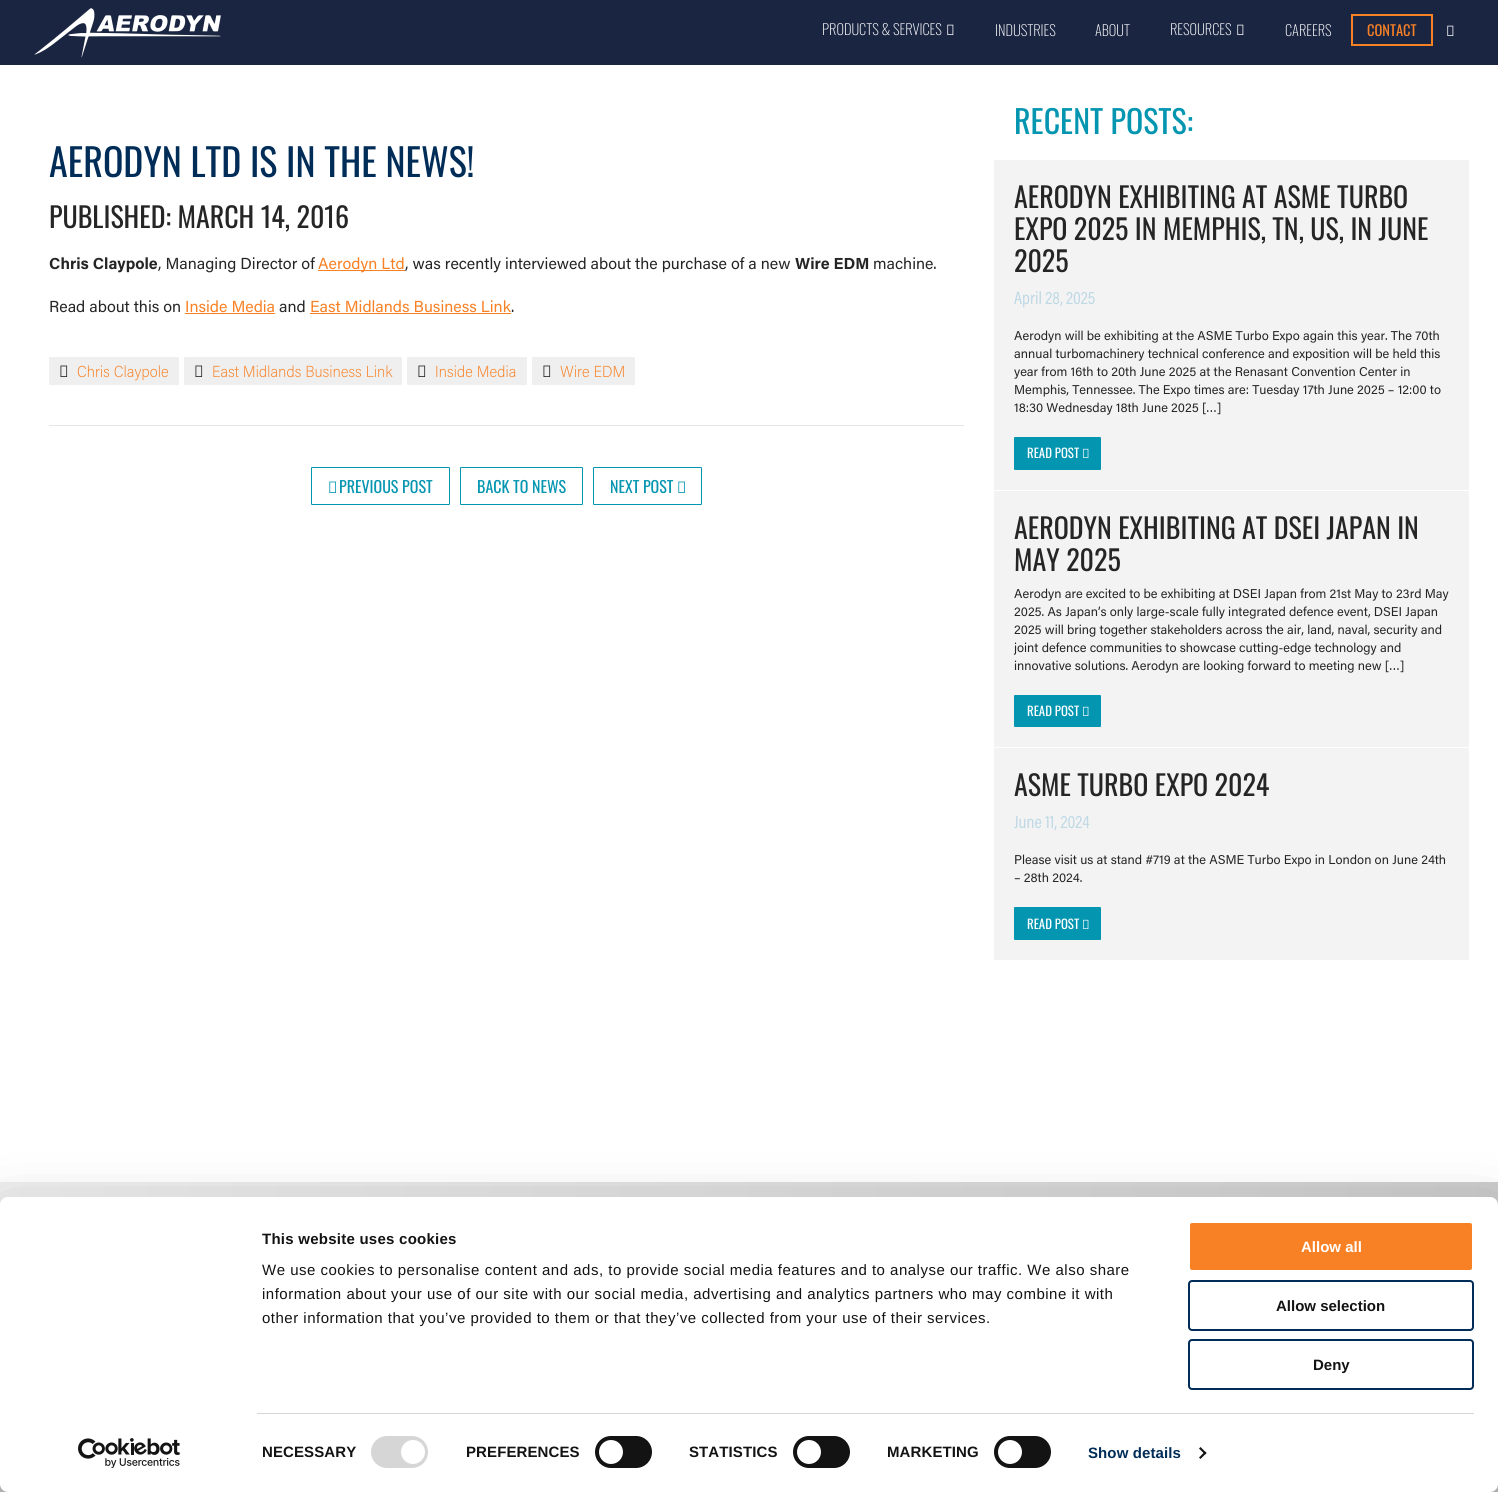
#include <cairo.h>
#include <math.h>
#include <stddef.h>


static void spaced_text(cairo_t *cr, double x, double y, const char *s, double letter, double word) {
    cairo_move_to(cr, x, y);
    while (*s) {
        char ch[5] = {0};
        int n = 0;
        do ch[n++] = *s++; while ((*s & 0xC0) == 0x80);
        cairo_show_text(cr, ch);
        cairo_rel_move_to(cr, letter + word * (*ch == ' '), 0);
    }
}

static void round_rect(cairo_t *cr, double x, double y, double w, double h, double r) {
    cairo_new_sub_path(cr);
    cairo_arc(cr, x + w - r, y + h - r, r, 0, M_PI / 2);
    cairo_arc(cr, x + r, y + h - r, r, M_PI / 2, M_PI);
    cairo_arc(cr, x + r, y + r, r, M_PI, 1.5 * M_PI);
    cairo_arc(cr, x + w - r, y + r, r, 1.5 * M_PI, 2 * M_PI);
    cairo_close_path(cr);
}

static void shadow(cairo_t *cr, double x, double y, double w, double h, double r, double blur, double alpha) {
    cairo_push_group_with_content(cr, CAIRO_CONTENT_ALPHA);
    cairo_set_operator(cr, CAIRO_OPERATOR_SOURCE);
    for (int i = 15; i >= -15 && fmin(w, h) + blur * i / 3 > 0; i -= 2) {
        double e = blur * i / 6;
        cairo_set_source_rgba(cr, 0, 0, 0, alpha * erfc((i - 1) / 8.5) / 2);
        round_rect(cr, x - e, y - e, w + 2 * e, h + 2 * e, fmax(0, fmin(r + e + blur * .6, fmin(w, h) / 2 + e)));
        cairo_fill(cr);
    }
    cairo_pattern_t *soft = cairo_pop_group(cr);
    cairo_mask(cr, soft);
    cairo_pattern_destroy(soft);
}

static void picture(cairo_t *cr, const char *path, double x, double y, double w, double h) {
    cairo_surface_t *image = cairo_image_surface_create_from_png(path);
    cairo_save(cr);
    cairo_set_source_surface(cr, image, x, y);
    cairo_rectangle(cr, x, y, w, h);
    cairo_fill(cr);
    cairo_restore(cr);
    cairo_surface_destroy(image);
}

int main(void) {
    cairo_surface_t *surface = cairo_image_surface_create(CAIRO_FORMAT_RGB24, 1498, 1492);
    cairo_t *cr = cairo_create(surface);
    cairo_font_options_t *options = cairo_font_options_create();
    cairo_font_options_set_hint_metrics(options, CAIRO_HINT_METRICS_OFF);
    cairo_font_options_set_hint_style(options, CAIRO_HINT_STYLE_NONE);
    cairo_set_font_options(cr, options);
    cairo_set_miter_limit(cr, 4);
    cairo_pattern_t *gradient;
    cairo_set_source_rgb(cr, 1, 1, 1);
    cairo_paint(cr);
    cairo_set_source_rgb(cr, 0.102, 0.145, 0.259);
    cairo_rectangle(cr, 0, 0, 1498, 65);
    cairo_fill(cr);
    picture(cr, "img1.png", 34, 8, 187, 50);
    cairo_select_font_face(cr, "Oswald ExtraLight", CAIRO_FONT_SLANT_NORMAL, CAIRO_FONT_WEIGHT_NORMAL);
    cairo_set_font_size(cr, 14.5);
    cairo_set_source_rgb(cr, 1, 1, 1);
    cairo_move_to(cr, 822, 35);
    cairo_show_text(cr, "PRODUCTS & SERVICES");
    picture(cr, "img2.png", 947, 24, 7, 11);
    cairo_move_to(cr, 995, 36);
    cairo_show_text(cr, "INDUSTRIES");
    cairo_move_to(cr, 1095, 36);
    cairo_show_text(cr, "ABOUT");
    cairo_move_to(cr, 1170, 35);
    cairo_show_text(cr, "RESOURCES");
    picture(cr, "img2.png", 1237, 24, 7, 11);
    cairo_move_to(cr, 1285, 36);
    cairo_show_text(cr, "CAREERS");
    cairo_rectangle(cr, 1352, 15, 80, 30);
    cairo_set_source_rgb(cr, 0.973, 0.506, 0.145);
    cairo_stroke(cr);
    cairo_select_font_face(cr, "Oswald", CAIRO_FONT_SLANT_NORMAL, CAIRO_FONT_WEIGHT_NORMAL);
    cairo_move_to(cr, 1367, 36);
    cairo_show_text(cr, "CONTACT");
    picture(cr, "img2.png", 1447, 25, 7, 11);
    cairo_set_font_size(cr, 38);
    cairo_set_source_rgb(cr, 0, 0.173, 0.345);
    cairo_move_to(cr, 49, 177);
    cairo_show_text(cr, "AERODYN LTD IS IN THE NEWS!");
    cairo_set_font_size(cr, 28);
    cairo_set_source_rgb(cr, 0.145, 0.145, 0.145);
    cairo_move_to(cr, 49, 228);
    cairo_show_text(cr, "PUBLISHED: MARCH 14, 2016");
    cairo_select_font_face(cr, "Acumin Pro", CAIRO_FONT_SLANT_NORMAL, CAIRO_FONT_WEIGHT_BOLD);
    cairo_set_font_size(cr, 16);
    cairo_move_to(cr, 49, 269);
    cairo_show_text(cr, "Chris Claypole");
    cairo_select_font_face(cr, "Acumin Pro", CAIRO_FONT_SLANT_NORMAL, CAIRO_FONT_WEIGHT_NORMAL);
    cairo_move_to(cr, 158, 269);
    cairo_show_text(cr, ", Managing Director of");
    cairo_set_source_rgb(cr, 0.973, 0.506, 0.145);
    cairo_rectangle(cr, 318, 270, 87, 1);
    cairo_fill(cr);
    cairo_move_to(cr, 318, 269);
    cairo_show_text(cr, "Aerodyn Ltd");
    cairo_set_source_rgb(cr, 0.145, 0.145, 0.145);
    cairo_move_to(cr, 405, 269);
    cairo_show_text(cr, ", was recently interviewed about the purchase of a new");
    cairo_select_font_face(cr, "Acumin Pro", CAIRO_FONT_SLANT_NORMAL, CAIRO_FONT_WEIGHT_BOLD);
    cairo_move_to(cr, 795, 269);
    cairo_show_text(cr, "Wire EDM");
    cairo_select_font_face(cr, "Acumin Pro", CAIRO_FONT_SLANT_NORMAL, CAIRO_FONT_WEIGHT_NORMAL);
    cairo_move_to(cr, 873, 269);
    cairo_show_text(cr, "machine.");
    cairo_move_to(cr, 49, 312);
    cairo_show_text(cr, "Read about this on");
    cairo_set_source_rgb(cr, 0.973, 0.506, 0.145);
    cairo_move_to(cr, 185, 312);
    cairo_show_text(cr, "Inside Media");
    cairo_rectangle(cr, 185, 313, 90, 1);
    cairo_fill(cr);
    cairo_set_source_rgb(cr, 0.145, 0.145, 0.145);
    cairo_move_to(cr, 279, 312);
    cairo_show_text(cr, "and");
    cairo_set_source_rgb(cr, 0.973, 0.506, 0.145);
    cairo_move_to(cr, 310, 312);
    cairo_show_text(cr, "East Midlands Business Link");
    cairo_rectangle(cr, 310, 313, 201, 1);
    cairo_fill(cr);
    cairo_set_source_rgb(cr, 0.145, 0.145, 0.145);
    cairo_move_to(cr, 511, 312);
    cairo_show_text(cr, ".");
    cairo_set_source_rgb(cr, 0.937, 0.937, 0.937);
    round_rect(cr, 49, 357, 130, 28, 1);
    cairo_fill(cr);
    picture(cr, "img3.png", 60, 365, 8, 12);
    picture(cr, "img4.png", 77, 365, 91, 16);
    round_rect(cr, 184, 357, 218, 28, 1);
    cairo_fill(cr);
    picture(cr, "img3.png", 195, 365, 8, 12);
    picture(cr, "img5.png", 213, 365, 180, 13);
    round_rect(cr, 407, 357, 120, 28, 1);
    cairo_fill(cr);
    picture(cr, "img3.png", 418, 365, 8, 12);
    picture(cr, "img6.png", 436, 365, 80, 13);
    round_rect(cr, 532, 357, 103, 28, 1);
    cairo_fill(cr);
    picture(cr, "img3.png", 543, 365, 8, 12);
    picture(cr, "img7.png", 560, 365, 64, 13);
    cairo_set_source_rgb(cr, 0.902, 0.902, 0.902);
    cairo_rectangle(cr, 49, 425, 915, 1);
    cairo_fill(cr);
    round_rect(cr, 311.5, 467.5, 138, 37, 0.5);
    cairo_set_source_rgb(cr, 0.016, 0.588, 0.694);
    cairo_set_line_width(cr, 1);
    cairo_stroke(cr);
    picture(cr, "img8.png", 329, 481, 7, 12);
    cairo_select_font_face(cr, "Oswald", CAIRO_FONT_SLANT_NORMAL, CAIRO_FONT_WEIGHT_NORMAL);
    cairo_move_to(cr, 339, 493);
    cairo_show_text(cr, "PREVIOUS POST");
    round_rect(cr, 460.5, 467.5, 122, 37, 0.5);
    cairo_stroke(cr);
    cairo_move_to(cr, 477, 493);
    cairo_show_text(cr, "BACK TO NEWS");
    round_rect(cr, 593.5, 467.5, 108, 37, 0.5);
    cairo_stroke(cr);
    cairo_move_to(cr, 610, 493);
    cairo_show_text(cr, "NEXT POST");
    picture(cr, "img8.png", 678, 481, 7, 12);
    cairo_set_font_size(cr, 32);
    cairo_move_to(cr, 1014, 134);
    cairo_show_text(cr, "RECENT POSTS:");
    cairo_set_source_rgb(cr, 0.953, 0.953, 0.953);
    cairo_rectangle(cr, 994, 160, 475, 330);
    cairo_fill(cr);
    cairo_set_font_size(cr, 28);
    cairo_set_source_rgb(cr, 0.145, 0.145, 0.145);
    cairo_move_to(cr, 1014, 208);
    cairo_show_text(cr, "AERODYN EXHIBITING AT ASME TURBO");
    cairo_move_to(cr, 1014, 240);
    cairo_show_text(cr, "EXPO 2025 IN MEMPHIS, TN, US, IN JUNE");
    cairo_move_to(cr, 1014, 272);
    cairo_show_text(cr, "2025");
    cairo_select_font_face(cr, "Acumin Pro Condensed", CAIRO_FONT_SLANT_NORMAL, CAIRO_FONT_WEIGHT_NORMAL);
    cairo_set_font_size(cr, 18);
    cairo_set_source_rgb(cr, 0.745, 0.847, 0.898);
    cairo_move_to(cr, 1014, 304);
    cairo_show_text(cr, "April 28, 2025");
    cairo_select_font_face(cr, "Acumin Pro", CAIRO_FONT_SLANT_NORMAL, CAIRO_FONT_WEIGHT_NORMAL);
    cairo_set_font_size(cr, 12.8);
    cairo_set_source_rgb(cr, 0.145, 0.145, 0.145);
    cairo_move_to(cr, 1014, 340);
    cairo_show_text(cr, "Aerodyn will be exhibiting at the ASME Turbo Expo again this year. The 70th");
    cairo_move_to(cr, 1014, 358);
    cairo_show_text(cr, "annual turbomachinery technical conference and exposition will be held this");
    cairo_move_to(cr, 1014, 376);
    cairo_show_text(cr, "year from 16th to 20th June 2025 at the Renasant Convention Center in");
    cairo_move_to(cr, 1014, 394);
    cairo_show_text(cr, "Memphis, Tennessee. The Expo times are: Tuesday 17th June 2025 – 12:00 to");
    cairo_move_to(cr, 1014, 412);
    cairo_show_text(cr, "18:30 Wednesday 18th June 2025 […]");
    cairo_set_source_rgb(cr, 0.016, 0.588, 0.694);
    round_rect(cr, 1014, 437, 87, 33, 1);
    cairo_fill(cr);
    cairo_select_font_face(cr, "Oswald", CAIRO_FONT_SLANT_NORMAL, CAIRO_FONT_WEIGHT_NORMAL);
    cairo_set_source_rgb(cr, 1, 1, 1);
    cairo_move_to(cr, 1027, 458);
    cairo_show_text(cr, "READ POST");
    picture(cr, "img9.png", 1083, 448, 6, 10);
    cairo_set_source_rgb(cr, 0.953, 0.953, 0.953);
    cairo_rectangle(cr, 994, 491, 475, 256);
    cairo_fill(cr);
    cairo_set_font_size(cr, 28);
    cairo_set_source_rgb(cr, 0.145, 0.145, 0.145);
    cairo_move_to(cr, 1014, 539);
    cairo_show_text(cr, "AERODYN EXHIBITING AT DSEI JAPAN IN");
    cairo_move_to(cr, 1014, 571);
    cairo_show_text(cr, "MAY 2025");
    cairo_select_font_face(cr, "Acumin Pro", CAIRO_FONT_SLANT_NORMAL, CAIRO_FONT_WEIGHT_NORMAL);
    cairo_set_font_size(cr, 12.8);
    cairo_move_to(cr, 1014, 598);
    cairo_show_text(cr, "Aerodyn are excited to be exhibiting at DSEI Japan from 21st May to 23rd May");
    cairo_move_to(cr, 1014, 616);
    cairo_show_text(cr, "2025. As Japan’s only large-scale fully integrated defence event, DSEI Japan");
    cairo_move_to(cr, 1014, 634);
    cairo_show_text(cr, "2025 will bring together stakeholders across the air, land, naval, security and");
    cairo_move_to(cr, 1014, 652);
    cairo_show_text(cr, "joint defence communities to showcase cutting-edge technology and");
    cairo_move_to(cr, 1014, 670);
    cairo_show_text(cr, "innovative solutions. Aerodyn are looking forward to meeting new […]");
    cairo_set_source_rgb(cr, 0.016, 0.588, 0.694);
    round_rect(cr, 1014, 695, 87, 32, 1);
    cairo_fill(cr);
    cairo_select_font_face(cr, "Oswald", CAIRO_FONT_SLANT_NORMAL, CAIRO_FONT_WEIGHT_NORMAL);
    cairo_set_source_rgb(cr, 1, 1, 1);
    cairo_move_to(cr, 1027, 716);
    cairo_show_text(cr, "READ POST");
    picture(cr, "img9.png", 1083, 706, 6, 10);
    cairo_set_source_rgb(cr, 0.953, 0.953, 0.953);
    cairo_rectangle(cr, 994, 748, 475, 212);
    cairo_fill(cr);
    cairo_set_font_size(cr, 28);
    cairo_set_source_rgb(cr, 0.145, 0.145, 0.145);
    cairo_move_to(cr, 1014, 796);
    cairo_show_text(cr, "ASME TURBO EXPO 2024");
    cairo_select_font_face(cr, "Acumin Pro Condensed", CAIRO_FONT_SLANT_NORMAL, CAIRO_FONT_WEIGHT_NORMAL);
    cairo_set_font_size(cr, 18);
    cairo_set_source_rgb(cr, 0.745, 0.847, 0.898);
    cairo_move_to(cr, 1014, 828);
    cairo_show_text(cr, "June 11, 2024");
    cairo_select_font_face(cr, "Acumin Pro", CAIRO_FONT_SLANT_NORMAL, CAIRO_FONT_WEIGHT_NORMAL);
    cairo_set_font_size(cr, 12.8);
    cairo_set_source_rgb(cr, 0.145, 0.145, 0.145);
    cairo_move_to(cr, 1014, 864);
    cairo_show_text(cr, "Please visit us at stand #719 at the ASME Turbo Expo in London on June 24th");
    cairo_move_to(cr, 1014, 882);
    cairo_show_text(cr, "– 28th 2024.");
    cairo_set_source_rgb(cr, 0.016, 0.588, 0.694);
    round_rect(cr, 1014, 907, 87, 33, 1);
    cairo_fill(cr);
    cairo_select_font_face(cr, "Oswald", CAIRO_FONT_SLANT_NORMAL, CAIRO_FONT_WEIGHT_NORMAL);
    cairo_set_source_rgb(cr, 1, 1, 1);
    cairo_move_to(cr, 1027, 929);
    cairo_show_text(cr, "READ POST");
    picture(cr, "img9.png", 1083, 919, 6, 10);
    gradient = cairo_pattern_create_linear(0, 1337, 1498, 1337);
    cairo_pattern_add_color_stop_rgba(gradient, 0, 0.937, 0.937, 0.937, 1);
    cairo_pattern_add_color_stop_rgba(gradient, 1, 0.8, 0.8, 0.8, 1);
    cairo_set_source(cr, gradient);
    cairo_pattern_destroy(gradient);
    cairo_rectangle(cr, 0, 1182, 1498, 23);
    cairo_fill(cr);
    cairo_set_source_rgb(cr, 0.8, 0.8, 0.8);
    cairo_rectangle(cr, 0, 1484, 1498, 8);
    cairo_fill(cr);
    cairo_set_source_rgb(cr, 0, 0, 0);
    shadow(cr, 0, 1227, 1498, 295, 8, 35, 0.3);
    cairo_set_source_rgb(cr, 1, 1, 1);
    round_rect(cr, 0, 1197, 1498, 295, 8);
    cairo_fill(cr);
    cairo_select_font_face(cr, "Liberation Sans", CAIRO_FONT_SLANT_NORMAL, CAIRO_FONT_WEIGHT_BOLD);
    cairo_set_font_size(cr, 15);
    cairo_set_source_rgb(cr, 0.078, 0.078, 0.078);
    spaced_text(cr, 262, 1244, "This website uses cookies", 0.25, 0);
    cairo_select_font_face(cr, "Liberation Sans", CAIRO_FONT_SLANT_NORMAL, CAIRO_FONT_WEIGHT_NORMAL);
    spaced_text(cr, 262, 1275, "We use cookies to personalise content and ads, to provide social media features and to analyse our traffic. We also share", 0.5, 0);
    spaced_text(cr, 262, 1299, "information about your use of our site with our social media, advertising and analytics partners who may combine it with", 0.5, 0);
    spaced_text(cr, 262, 1323, "other information that you’ve provided to them or that they’ve collected from your use of their services.", 0.5, 0);
    cairo_set_source_rgb(cr, 0.839, 0.839, 0.839);
    cairo_rectangle(cr, 257, 1413, 1217, 1);
    cairo_fill(cr);
    cairo_select_font_face(cr, "Liberation Sans", CAIRO_FONT_SLANT_NORMAL, CAIRO_FONT_WEIGHT_BOLD);
    cairo_set_source_rgb(cr, 0.078, 0.078, 0.078);
    spaced_text(cr, 262, 1457, "NECESSARY", 0.1, 0);
    cairo_set_source_rgb(cr, 0.839, 0.839, 0.839);
    round_rect(cr, 371, 1436, 57, 32, 16);
    cairo_fill(cr);
    cairo_set_source_rgb(cr, 1, 1, 1);
    cairo_arc(cr, 413, 1452, 12, 0, 2 * M_PI);
    cairo_fill(cr);
    cairo_set_source_rgb(cr, 0.078, 0.078, 0.078);
    spaced_text(cr, 466, 1457, "PREFERENCES", 0.1, 0);
    round_rect(cr, 595, 1436, 57, 32, 16);
    cairo_fill(cr);
    cairo_set_source_rgb(cr, 1, 1, 1);
    cairo_arc(cr, 611, 1452, 12, 0, 2 * M_PI);
    cairo_fill(cr);
    cairo_set_source_rgb(cr, 0.078, 0.078, 0.078);
    spaced_text(cr, 689, 1457, "STATISTICS", 0.1, 0);
    round_rect(cr, 793, 1436, 57, 32, 16);
    cairo_fill(cr);
    cairo_set_source_rgb(cr, 1, 1, 1);
    cairo_arc(cr, 809, 1452, 12, 0, 2 * M_PI);
    cairo_fill(cr);
    cairo_set_source_rgb(cr, 0.078, 0.078, 0.078);
    spaced_text(cr, 887, 1457, "MARKETING", 0.1, 0);
    round_rect(cr, 994, 1436, 57, 32, 16);
    cairo_fill(cr);
    cairo_set_source_rgb(cr, 1, 1, 1);
    cairo_arc(cr, 1010, 1452, 12, 0, 2 * M_PI);
    cairo_fill(cr);
    cairo_set_source_rgb(cr, 0, 0.173, 0.345);
    spaced_text(cr, 1088, 1458, "Show details", 0.1, 0);
    cairo_set_source_rgb(cr, 0.078, 0.078, 0.078);
    cairo_new_path(cr);
    cairo_move_to(cr, 1200.5, 1447);
    cairo_line_to(cr, 1206.5, 1453);
    cairo_line_to(cr, 1205, 1454.5);
    cairo_line_to(cr, 1199, 1448.5);
    cairo_close_path(cr);
    cairo_fill(cr);
    cairo_new_path(cr);
    cairo_move_to(cr, 1205, 1451.5);
    cairo_line_to(cr, 1206.5, 1453);
    cairo_line_to(cr, 1200.5, 1459);
    cairo_line_to(cr, 1199, 1457.5);
    cairo_close_path(cr);
    cairo_fill(cr);
    cairo_set_source_rgb(cr, 0.973, 0.506, 0.145);
    round_rect(cr, 1189, 1222, 284, 49, 3);
    cairo_fill_preserve(cr);
    cairo_set_source_rgb(cr, 1, 1, 1);
    cairo_set_line_width(cr, 2);
    cairo_stroke(cr);
    cairo_move_to(cr, 1301, 1252);
    cairo_show_text(cr, "Allow all");
    round_rect(cr, 1189, 1281, 284, 49, 3);
    cairo_set_source_rgb(cr, 0, 0.173, 0.345);
    cairo_stroke(cr);
    cairo_set_source_rgb(cr, 0.078, 0.078, 0.078);
    cairo_move_to(cr, 1276, 1311);
    cairo_show_text(cr, "Allow selection");
    round_rect(cr, 1189, 1340, 284, 49, 3);
    cairo_set_source_rgb(cr, 0, 0.173, 0.345);
    cairo_stroke(cr);
    cairo_set_source_rgb(cr, 0.078, 0.078, 0.078);
    cairo_move_to(cr, 1313, 1370);
    cairo_show_text(cr, "Deny");
    picture(cr, "img10.png", 78, 1438, 102, 30);
    cairo_surface_write_to_png(surface, "page.png");
    cairo_font_options_destroy(options);
    cairo_destroy(cr);
    cairo_surface_destroy(surface);
    return 0;
}
